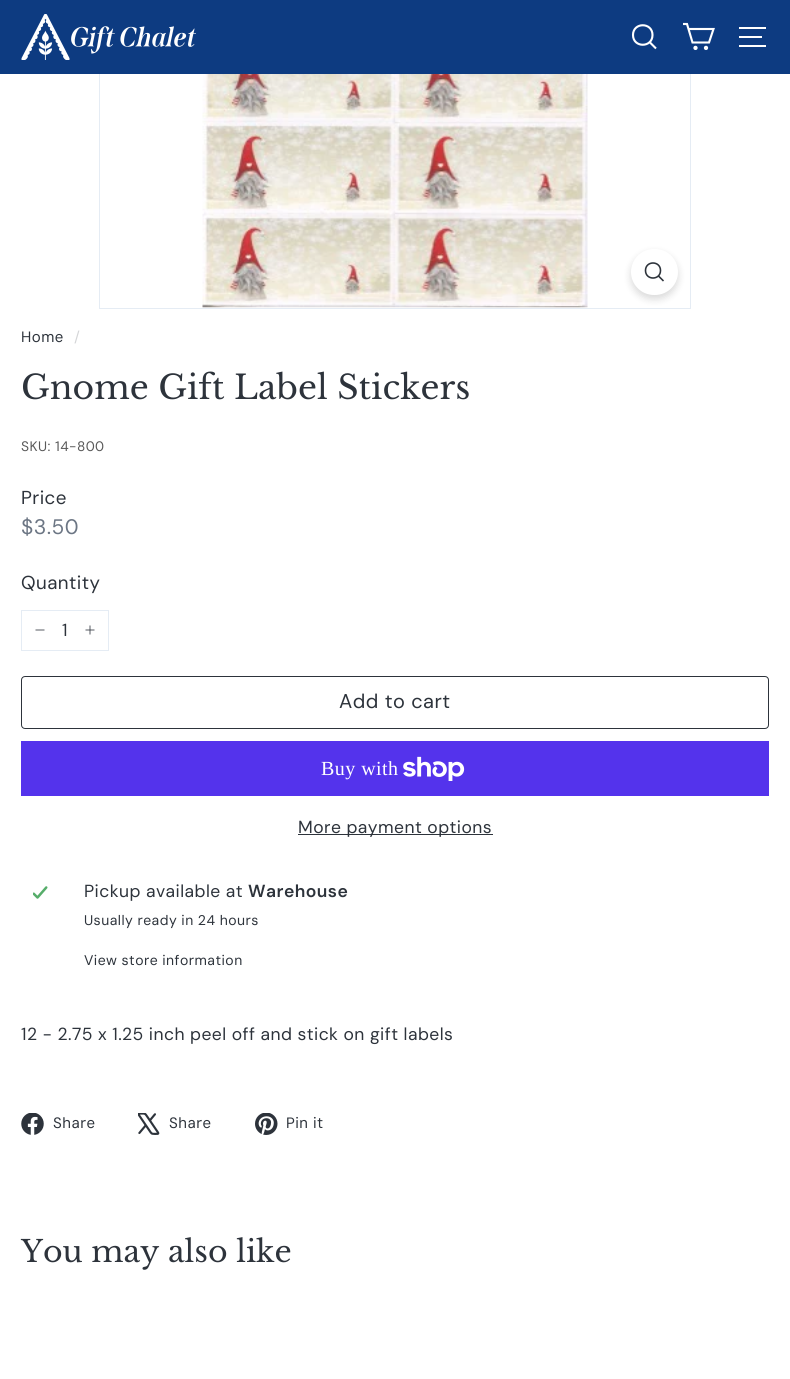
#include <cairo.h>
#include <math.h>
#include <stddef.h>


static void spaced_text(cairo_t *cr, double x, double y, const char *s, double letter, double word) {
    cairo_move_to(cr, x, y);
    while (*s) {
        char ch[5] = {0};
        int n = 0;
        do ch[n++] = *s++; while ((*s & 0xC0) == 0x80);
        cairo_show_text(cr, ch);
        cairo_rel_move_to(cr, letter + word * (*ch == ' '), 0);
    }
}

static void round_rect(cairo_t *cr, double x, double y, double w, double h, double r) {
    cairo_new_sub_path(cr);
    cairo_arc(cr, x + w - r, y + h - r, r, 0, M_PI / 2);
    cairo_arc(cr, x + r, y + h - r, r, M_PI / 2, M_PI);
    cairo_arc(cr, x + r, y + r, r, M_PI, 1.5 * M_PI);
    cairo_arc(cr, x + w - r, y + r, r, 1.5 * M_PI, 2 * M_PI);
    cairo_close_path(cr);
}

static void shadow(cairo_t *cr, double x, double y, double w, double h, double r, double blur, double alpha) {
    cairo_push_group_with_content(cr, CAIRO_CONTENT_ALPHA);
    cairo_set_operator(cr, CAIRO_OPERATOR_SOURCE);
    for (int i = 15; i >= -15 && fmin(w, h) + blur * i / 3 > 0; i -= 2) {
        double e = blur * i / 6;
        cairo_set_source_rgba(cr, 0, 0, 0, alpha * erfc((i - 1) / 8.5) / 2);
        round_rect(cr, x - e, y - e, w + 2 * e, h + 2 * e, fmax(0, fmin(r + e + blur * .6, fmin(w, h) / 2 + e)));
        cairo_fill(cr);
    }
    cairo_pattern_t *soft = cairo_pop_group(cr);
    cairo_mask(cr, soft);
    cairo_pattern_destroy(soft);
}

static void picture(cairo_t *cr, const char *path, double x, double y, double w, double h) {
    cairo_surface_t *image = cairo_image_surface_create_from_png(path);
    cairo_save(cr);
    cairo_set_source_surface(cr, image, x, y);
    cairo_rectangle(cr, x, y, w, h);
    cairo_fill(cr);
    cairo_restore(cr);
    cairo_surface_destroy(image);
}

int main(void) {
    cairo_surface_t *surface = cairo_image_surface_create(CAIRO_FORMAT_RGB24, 790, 1379);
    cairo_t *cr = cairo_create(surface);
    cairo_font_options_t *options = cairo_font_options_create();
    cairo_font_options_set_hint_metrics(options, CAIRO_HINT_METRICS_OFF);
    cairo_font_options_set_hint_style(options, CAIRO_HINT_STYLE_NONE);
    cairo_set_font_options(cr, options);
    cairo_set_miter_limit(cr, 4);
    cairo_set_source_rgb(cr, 1, 1, 1);
    cairo_paint(cr);
    cairo_rectangle(cr, 99.5, -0.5, 591, 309);
    cairo_set_source_rgb(cr, 0.898, 0.922, 0.957);
    cairo_set_line_width(cr, 1);
    cairo_stroke(cr);
    cairo_set_source_rgb(cr, 0.051, 0.231, 0.506);
    cairo_rectangle(cr, 0, 0, 790, 74);
    cairo_fill(cr);
    picture(cr, "img1.png", 21, 14, 175, 46);
    cairo_new_path(cr);
    cairo_move_to(cr, 652.5, 35);
    cairo_curve_to(cr, 652.5, 48, 633, 48, 633, 35);
    cairo_curve_to(cr, 633, 22, 652.5, 22, 652.5, 35);
    cairo_move_to(cr, 656, 48.5);
    cairo_line_to(cr, 649.5, 42);
    cairo_set_source_rgb(cr, 1, 1, 1);
    cairo_set_line_width(cr, 2.1);
    cairo_stroke(cr);
    cairo_new_path(cr);
    cairo_move_to(cr, 688.5, 29);
    cairo_line_to(cr, 713.5, 29);
    cairo_line_to(cr, 709, 42.5);
    cairo_line_to(cr, 692.5, 42.5);
    cairo_line_to(cr, 687, 24);
    cairo_line_to(cr, 683, 24);
    cairo_stroke(cr);
    cairo_arc(cr, 695.5, 47.9, 1.1, 0, 2 * M_PI);
    cairo_stroke(cr);
    cairo_arc(cr, 706, 47.9, 1.1, 0, 2 * M_PI);
    cairo_stroke(cr);
    cairo_rectangle(cr, 739, 27, 27, 2);
    cairo_fill(cr);
    cairo_rectangle(cr, 739, 36, 23, 2);
    cairo_fill(cr);
    cairo_rectangle(cr, 739, 45, 27, 2);
    cairo_fill(cr);
    picture(cr, "img2.png", 202, 74, 386, 234);
    cairo_set_source_rgb(cr, 0, 0, 0);
    shadow(cr, 631, 253, 47, 46, 23, 4, 0.15);
    cairo_set_source_rgb(cr, 1, 1, 1);
    round_rect(cr, 631, 249, 47, 46, 23);
    cairo_fill(cr);
    cairo_new_path(cr);
    cairo_move_to(cr, 660.5, 270.5);
    cairo_curve_to(cr, 660.5, 280.5, 645.5, 280.5, 645.5, 270.5);
    cairo_curve_to(cr, 645.5, 260.5, 660.5, 260.5, 660.5, 270.5);
    cairo_move_to(cr, 663.5, 281);
    cairo_line_to(cr, 658.5, 276);
    cairo_set_source_rgb(cr, 0.176, 0.2, 0.231);
    cairo_set_line_width(cr, 1.6);
    cairo_stroke(cr);
    cairo_select_font_face(cr, "DM Sans", CAIRO_FONT_SLANT_NORMAL, CAIRO_FONT_WEIGHT_NORMAL);
    cairo_set_font_size(cr, 15);
    spaced_text(cr, 21, 342, "Home", 0.45, 0);
    cairo_set_source_rgb(cr, 0.835, 0.839, 0.847);
    spaced_text(cr, 74, 342, "/", 0.45, 0);
    cairo_select_font_face(cr, "Libre Baskerville", CAIRO_FONT_SLANT_NORMAL, CAIRO_FONT_WEIGHT_NORMAL);
    cairo_set_font_size(cr, 33.1);
    cairo_set_source_rgb(cr, 0.176, 0.2, 0.231);
    cairo_move_to(cr, 21, 399);
    cairo_show_text(cr, "Gnome Gift Label Stickers");
    cairo_select_font_face(cr, "DM Sans", CAIRO_FONT_SLANT_NORMAL, CAIRO_FONT_WEIGHT_NORMAL);
    cairo_set_font_size(cr, 13.75);
    cairo_set_source_rgb(cr, 0.349, 0.349, 0.349);
    spaced_text(cr, 21, 451, "SKU: 14-800", 0.45, 0);
    cairo_select_font_face(cr, "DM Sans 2", CAIRO_FONT_SLANT_NORMAL, CAIRO_FONT_WEIGHT_NORMAL);
    cairo_set_font_size(cr, 18.75);
    cairo_set_source_rgb(cr, 0.176, 0.2, 0.231);
    spaced_text(cr, 21, 504, "Price", 0.45, 0);
    cairo_select_font_face(cr, "DM Sans", CAIRO_FONT_SLANT_NORMAL, CAIRO_FONT_WEIGHT_NORMAL);
    cairo_set_font_size(cr, 21);
    cairo_set_source_rgb(cr, 0.424, 0.463, 0.518);
    spaced_text(cr, 21, 534, "$3.50", 0.45, 0);
    cairo_select_font_face(cr, "DM Sans 2", CAIRO_FONT_SLANT_NORMAL, CAIRO_FONT_WEIGHT_NORMAL);
    cairo_set_font_size(cr, 18.75);
    cairo_set_source_rgb(cr, 0.176, 0.2, 0.231);
    spaced_text(cr, 21, 589, "Quantity", 0.45, 0);
    cairo_rectangle(cr, 21.5, 610.5, 87, 40);
    cairo_set_source_rgb(cr, 0.898, 0.922, 0.957);
    cairo_set_line_width(cr, 1);
    cairo_stroke(cr);
    cairo_select_font_face(cr, "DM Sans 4", CAIRO_FONT_SLANT_NORMAL, CAIRO_FONT_WEIGHT_NORMAL);
    cairo_set_font_size(cr, 17.5);
    cairo_set_source_rgb(cr, 0.176, 0.2, 0.231);
    spaced_text(cr, 62, 636, "1", 0.45, 0);
    cairo_new_path(cr);
    cairo_move_to(cr, 44.5, 630);
    cairo_line_to(cr, 35.5, 630);
    cairo_move_to(cr, 90, 625.5);
    cairo_line_to(cr, 90, 634.5);
    cairo_move_to(cr, 94.5, 630);
    cairo_line_to(cr, 85.5, 630);
    cairo_set_line_width(cr, 0.8);
    cairo_stroke(cr);
    round_rect(cr, 21.5, 676.5, 747, 52, 3.5);
    cairo_set_line_width(cr, 1);
    cairo_stroke(cr);
    cairo_select_font_face(cr, "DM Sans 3", CAIRO_FONT_SLANT_NORMAL, CAIRO_FONT_WEIGHT_NORMAL);
    cairo_set_font_size(cr, 20);
    spaced_text(cr, 339, 708, "Add to cart", 0.5, 0);
    cairo_set_source_rgb(cr, 0.329, 0.2, 0.922);
    cairo_rectangle(cr, 21, 741, 748, 55);
    cairo_fill(cr);
    cairo_select_font_face(cr, "Liberation Serif", CAIRO_FONT_SLANT_NORMAL, CAIRO_FONT_WEIGHT_NORMAL);
    cairo_set_source_rgb(cr, 1, 1, 1);
    spaced_text(cr, 321, 775, "Buy with", 0.45, 0);
    picture(cr, "img3.png", 403, 756, 62, 25);
    cairo_set_source_rgb(cr, 0.176, 0.2, 0.231);
    cairo_rectangle(cr, 298, 834, 195, 1);
    cairo_fill(cr);
    cairo_select_font_face(cr, "DM Sans 4", CAIRO_FONT_SLANT_NORMAL, CAIRO_FONT_WEIGHT_NORMAL);
    cairo_set_font_size(cr, 17.5);
    spaced_text(cr, 298, 833, "More payment options", 0.45, 0);
    picture(cr, "img4.png", 33, 886, 15, 13);
    spaced_text(cr, 84, 897, "Pickup available at", 0.45, 0);
    cairo_select_font_face(cr, "DM Sans SemiBold", CAIRO_FONT_SLANT_NORMAL, CAIRO_FONT_WEIGHT_NORMAL);
    spaced_text(cr, 248, 897, "Warehouse", 0.45, 0);
    cairo_select_font_face(cr, "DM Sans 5", CAIRO_FONT_SLANT_NORMAL, CAIRO_FONT_WEIGHT_NORMAL);
    cairo_set_font_size(cr, 14);
    spaced_text(cr, 84, 925, "Usually ready in 24 hours", 0.45, 0);
    spaced_text(cr, 84, 965, "View store information", 0.45, 0);
    cairo_select_font_face(cr, "DM Sans 4", CAIRO_FONT_SLANT_NORMAL, CAIRO_FONT_WEIGHT_NORMAL);
    cairo_set_font_size(cr, 17.5);
    spaced_text(cr, 21, 1040, "12 - 2.75 x 1.25 inch peel off and stick on gift labels", 0.45, 0);
    picture(cr, "img5.png", 21, 1113, 23, 22);
    cairo_select_font_face(cr, "DM Sans", CAIRO_FONT_SLANT_NORMAL, CAIRO_FONT_WEIGHT_NORMAL);
    cairo_set_font_size(cr, 15);
    spaced_text(cr, 53, 1128, "Share", 0.45, 0);
    picture(cr, "img6.png", 138, 1113, 22, 22);
    spaced_text(cr, 169, 1128, "Share", 0.45, 0);
    picture(cr, "img7.png", 255, 1113, 23, 22);
    spaced_text(cr, 286, 1128, "Pin it", 0.45, 0);
    cairo_select_font_face(cr, "Libre Baskerville", CAIRO_FONT_SLANT_NORMAL, CAIRO_FONT_WEIGHT_NORMAL);
    cairo_set_font_size(cr, 30);
    cairo_move_to(cr, 21, 1262);
    cairo_show_text(cr, "You may also like");
    cairo_surface_write_to_png(surface, "page.png");
    cairo_font_options_destroy(options);
    cairo_destroy(cr);
    cairo_surface_destroy(surface);
    return 0;
}
